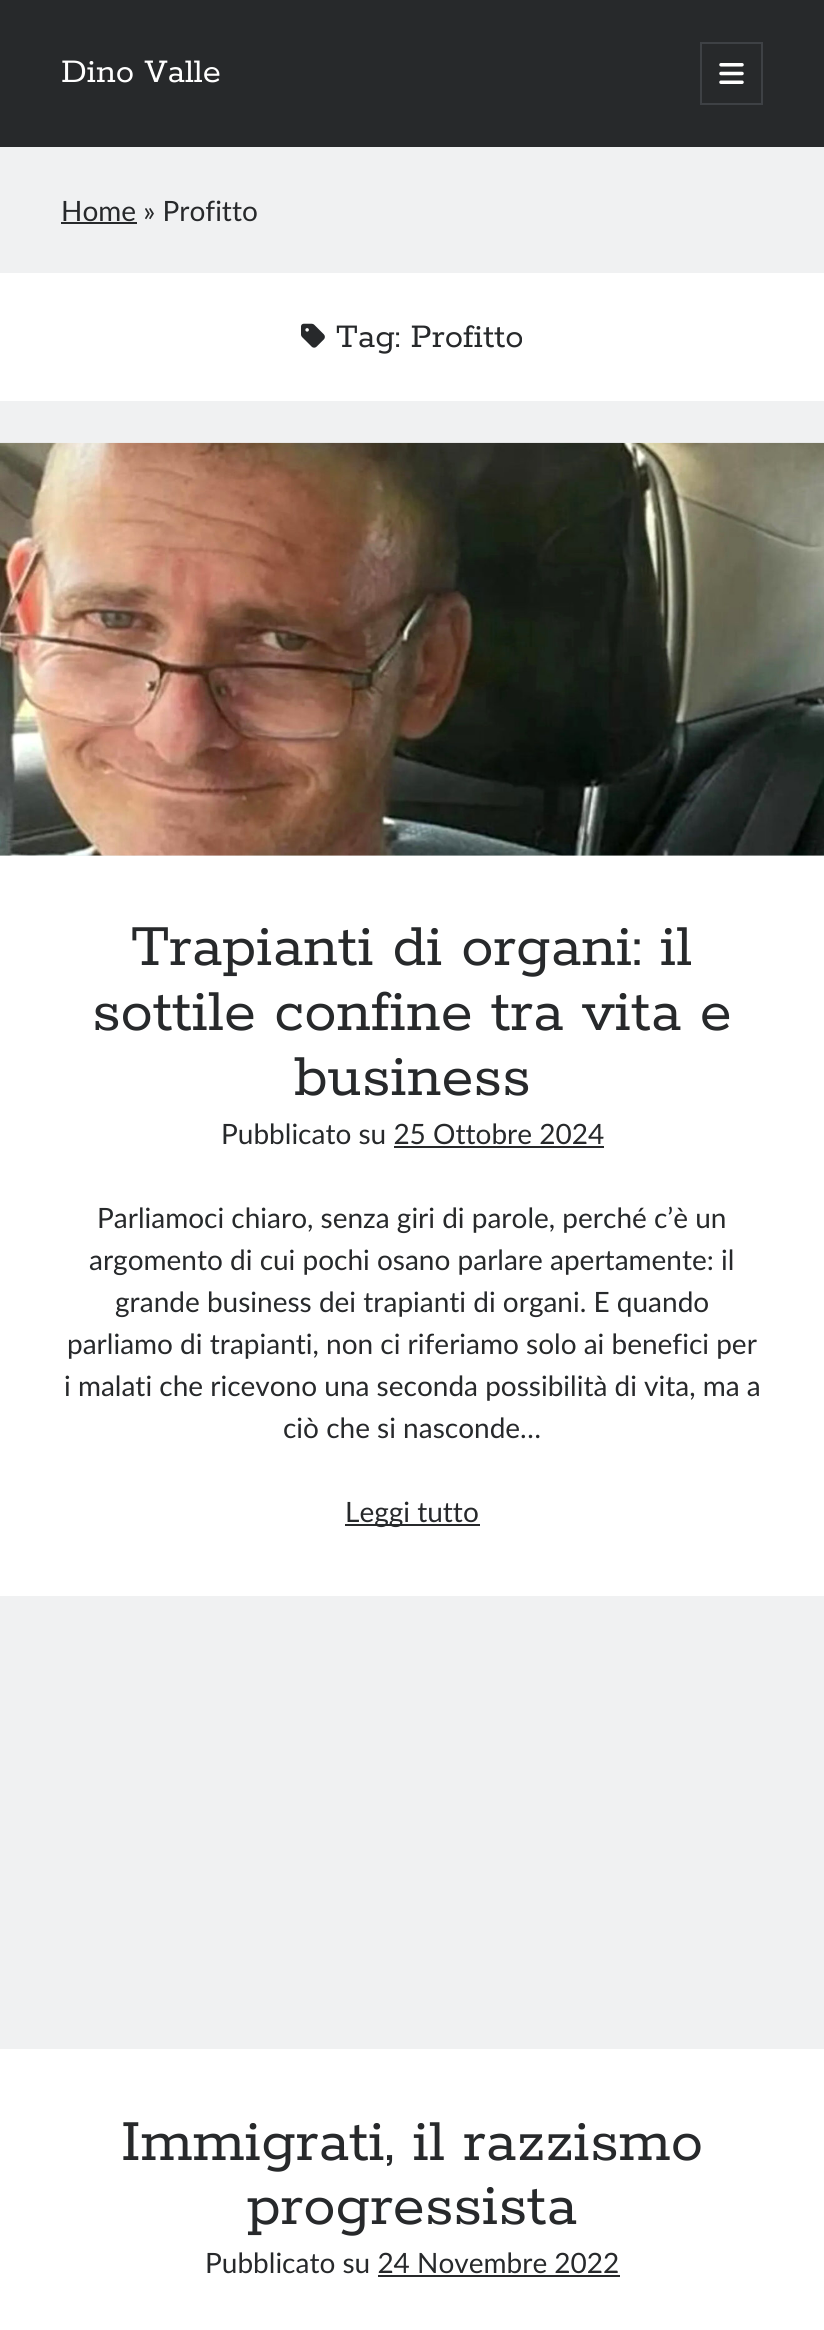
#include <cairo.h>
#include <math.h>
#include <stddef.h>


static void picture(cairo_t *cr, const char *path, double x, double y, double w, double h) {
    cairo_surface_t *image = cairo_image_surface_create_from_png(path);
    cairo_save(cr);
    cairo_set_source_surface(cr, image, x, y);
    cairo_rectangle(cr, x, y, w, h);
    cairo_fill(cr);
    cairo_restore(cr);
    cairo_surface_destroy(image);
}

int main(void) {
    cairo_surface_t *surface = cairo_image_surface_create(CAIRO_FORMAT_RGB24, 824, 2330);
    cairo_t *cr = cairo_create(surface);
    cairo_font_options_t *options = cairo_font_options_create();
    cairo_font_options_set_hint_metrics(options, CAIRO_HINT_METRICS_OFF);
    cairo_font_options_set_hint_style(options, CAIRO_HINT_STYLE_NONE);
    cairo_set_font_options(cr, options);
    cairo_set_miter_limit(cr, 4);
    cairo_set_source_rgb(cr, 0.153, 0.161, 0.169);
    cairo_paint(cr);
    cairo_select_font_face(cr, "Rokkitt", CAIRO_FONT_SLANT_NORMAL, CAIRO_FONT_WEIGHT_NORMAL);
    cairo_set_font_size(cr, 36.75);
    cairo_set_source_rgb(cr, 1, 1, 1);
    cairo_move_to(cr, 61, 82);
    cairo_show_text(cr, "Dino Valle");
    cairo_rectangle(cr, 701, 43, 61, 61);
    cairo_set_source_rgb(cr, 0.243, 0.255, 0.271);
    cairo_stroke(cr);
    picture(cr, "img1.png", 719, 63, 25, 21);
    cairo_set_source_rgb(cr, 0.941, 0.945, 0.949);
    cairo_rectangle(cr, 0, 147, 824, 1902);
    cairo_fill(cr);
    cairo_select_font_face(cr, "Lato", CAIRO_FONT_SLANT_NORMAL, CAIRO_FONT_WEIGHT_NORMAL);
    cairo_set_font_size(cr, 28);
    cairo_set_source_rgb(cr, 0.153, 0.161, 0.169);
    cairo_move_to(cr, 61, 221);
    cairo_show_text(cr, "Home » Profitto");
    cairo_rectangle(cr, 61, 222, 76, 2);
    cairo_fill(cr);
    cairo_set_source_rgb(cr, 1, 1, 1);
    cairo_rectangle(cr, 0, 273, 824, 128);
    cairo_fill(cr);
    picture(cr, "img2.png", 301, 323, 24, 25);
    cairo_select_font_face(cr, "Rokkitt", CAIRO_FONT_SLANT_NORMAL, CAIRO_FONT_WEIGHT_NORMAL);
    cairo_set_font_size(cr, 36.75);
    cairo_set_source_rgb(cr, 0.153, 0.161, 0.169);
    cairo_move_to(cr, 336, 347);
    cairo_show_text(cr, "Tag: Profitto");
    picture(cr, "img3.png", 0, 442, 824, 414);
    cairo_set_source_rgb(cr, 1, 1, 1);
    cairo_rectangle(cr, 0, 856, 824, 740);
    cairo_fill(cr);
    cairo_set_font_size(cr, 64.75);
    cairo_set_source_rgb(cr, 0.153, 0.161, 0.169);
    cairo_move_to(cr, 131, 965);
    cairo_show_text(cr, "Trapianti di organi: il");
    cairo_move_to(cr, 92, 1030);
    cairo_show_text(cr, "sottile confine tra vita e");
    cairo_move_to(cr, 294, 1095);
    cairo_show_text(cr, "business");
    cairo_select_font_face(cr, "Lato", CAIRO_FONT_SLANT_NORMAL, CAIRO_FONT_WEIGHT_NORMAL);
    cairo_set_font_size(cr, 28);
    cairo_move_to(cr, 221, 1144);
    cairo_show_text(cr, "Pubblicato su 25 Ottobre 2024");
    cairo_rectangle(cr, 394, 1146, 210, 2);
    cairo_fill(cr);
    cairo_move_to(cr, 97, 1228);
    cairo_show_text(cr, "Parliamoci chiaro, senza giri di parole, perché c’è un");
    cairo_move_to(cr, 89, 1270);
    cairo_show_text(cr, "argomento di cui pochi osano parlare apertamente: il");
    cairo_move_to(cr, 115, 1312);
    cairo_show_text(cr, "grande business dei trapianti di organi. E quando");
    cairo_move_to(cr, 67, 1354);
    cairo_show_text(cr, "parliamo di trapianti, non ci riferiamo solo ai benefici per");
    cairo_move_to(cr, 64, 1396);
    cairo_show_text(cr, "i malati che ricevono una seconda possibilità di vita, ma a");
    cairo_move_to(cr, 283, 1438);
    cairo_show_text(cr, "ciò che si nasconde…");
    cairo_rectangle(cr, 345, 1524, 135, 2);
    cairo_fill(cr);
    cairo_move_to(cr, 345, 1522);
    cairo_show_text(cr, "Leggi tutto");
    cairo_set_source_rgb(cr, 1, 1, 1);
    cairo_rectangle(cr, 0, 2049, 824, 281);
    cairo_fill(cr);
    cairo_select_font_face(cr, "Rokkitt", CAIRO_FONT_SLANT_NORMAL, CAIRO_FONT_WEIGHT_NORMAL);
    cairo_set_font_size(cr, 64.75);
    cairo_set_source_rgb(cr, 0.153, 0.161, 0.169);
    cairo_move_to(cr, 121, 2160);
    cairo_show_text(cr, "Immigrati, il razzismo");
    cairo_move_to(cr, 247, 2224);
    cairo_show_text(cr, "progressista");
    cairo_select_font_face(cr, "Lato", CAIRO_FONT_SLANT_NORMAL, CAIRO_FONT_WEIGHT_NORMAL);
    cairo_set_font_size(cr, 28);
    cairo_move_to(cr, 205, 2273);
    cairo_show_text(cr, "Pubblicato su 24 Novembre 2022");
    cairo_rectangle(cr, 378, 2275, 242, 2);
    cairo_fill(cr);
    cairo_surface_write_to_png(surface, "page.png");
    cairo_font_options_destroy(options);
    cairo_destroy(cr);
    cairo_surface_destroy(surface);
    return 0;
}
